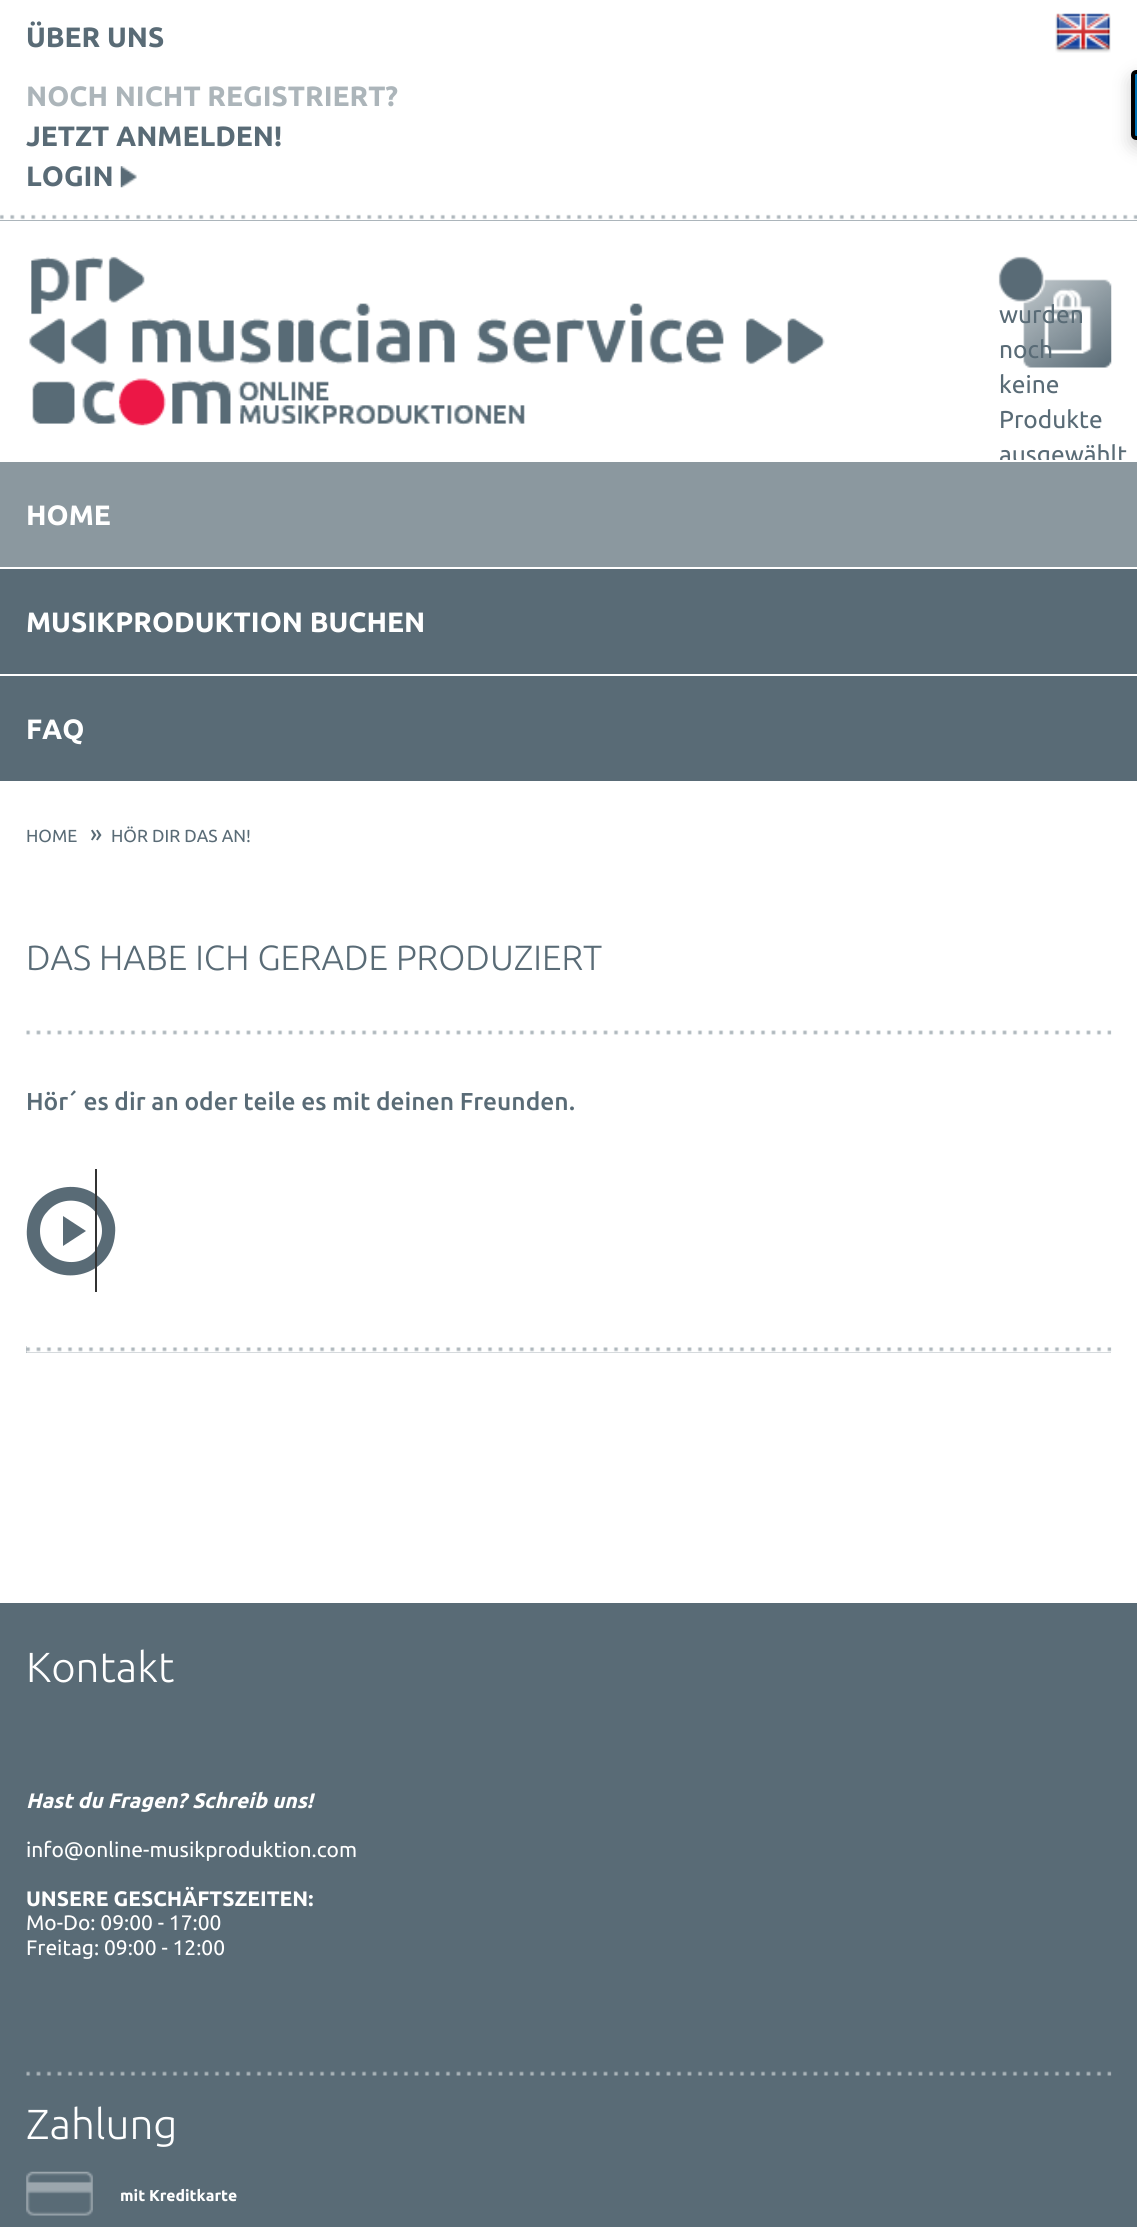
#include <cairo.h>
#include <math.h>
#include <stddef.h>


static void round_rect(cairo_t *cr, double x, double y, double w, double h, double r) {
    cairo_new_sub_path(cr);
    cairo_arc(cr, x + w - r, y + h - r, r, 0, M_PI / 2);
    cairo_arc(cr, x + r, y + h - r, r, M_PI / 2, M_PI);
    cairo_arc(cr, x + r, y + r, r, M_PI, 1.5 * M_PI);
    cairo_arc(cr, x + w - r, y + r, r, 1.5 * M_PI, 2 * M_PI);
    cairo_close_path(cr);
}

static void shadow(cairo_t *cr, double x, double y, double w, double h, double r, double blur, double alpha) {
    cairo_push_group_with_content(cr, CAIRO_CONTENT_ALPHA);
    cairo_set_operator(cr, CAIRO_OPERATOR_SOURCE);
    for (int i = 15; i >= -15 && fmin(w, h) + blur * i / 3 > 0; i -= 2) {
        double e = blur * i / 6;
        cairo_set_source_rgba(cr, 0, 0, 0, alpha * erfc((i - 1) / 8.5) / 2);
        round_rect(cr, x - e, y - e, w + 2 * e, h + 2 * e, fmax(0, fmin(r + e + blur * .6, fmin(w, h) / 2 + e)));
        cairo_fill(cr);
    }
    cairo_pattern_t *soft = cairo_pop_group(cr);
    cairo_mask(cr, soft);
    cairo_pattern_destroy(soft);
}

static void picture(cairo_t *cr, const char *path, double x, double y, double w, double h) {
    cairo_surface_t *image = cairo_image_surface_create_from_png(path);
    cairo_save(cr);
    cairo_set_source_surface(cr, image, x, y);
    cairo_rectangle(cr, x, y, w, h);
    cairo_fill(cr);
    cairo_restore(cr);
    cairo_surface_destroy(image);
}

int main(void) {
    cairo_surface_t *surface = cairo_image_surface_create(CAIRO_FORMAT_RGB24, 1137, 2227);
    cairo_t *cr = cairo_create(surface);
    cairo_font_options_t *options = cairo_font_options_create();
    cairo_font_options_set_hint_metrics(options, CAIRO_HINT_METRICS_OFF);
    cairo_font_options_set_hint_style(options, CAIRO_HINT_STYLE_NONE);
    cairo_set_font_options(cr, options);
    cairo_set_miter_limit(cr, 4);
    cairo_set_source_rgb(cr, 1, 1, 1);
    cairo_paint(cr);
    cairo_select_font_face(cr, "Ubuntu", CAIRO_FONT_SLANT_NORMAL, CAIRO_FONT_WEIGHT_BOLD);
    cairo_set_font_size(cr, 28);
    cairo_set_source_rgb(cr, 0.349, 0.42, 0.463);
    cairo_move_to(cr, 26, 47);
    cairo_show_text(cr, "ÜBER UNS");
    picture(cr, "img1.png", 1055, 13, 56, 40);
    cairo_set_source_rgb(cr, 0.675, 0.71, 0.729);
    cairo_move_to(cr, 26, 106);
    cairo_show_text(cr, "NOCH NICHT REGISTRIERT?");
    cairo_set_source_rgb(cr, 0.349, 0.42, 0.463);
    cairo_move_to(cr, 26, 146);
    cairo_show_text(cr, "JETZT ANMELDEN!");
    cairo_move_to(cr, 26, 186);
    cairo_show_text(cr, "LOGIN");
    picture(cr, "img2.png", 120, 166, 17, 22);
    cairo_set_source_rgb(cr, 0, 0, 0);
    shadow(cr, 1131, 77, 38, 70, 5, 9, 0.2);
    cairo_set_source_rgb(cr, 0, 0.451, 0.718);
    cairo_new_path(cr);
    cairo_move_to(cr, 1136, 72);
    cairo_line_to(cr, 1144, 72);
    cairo_line_to(cr, 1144, 138);
    cairo_line_to(cr, 1136, 138);
    cairo_curve_to(cr, 1134.5, 138, 1133, 136.5, 1133, 135);
    cairo_line_to(cr, 1133, 75);
    cairo_curve_to(cr, 1133, 73.5, 1134.5, 72, 1136, 72);
    cairo_close_path(cr);
    cairo_fill_preserve(cr);
    cairo_set_source_rgb(cr, 0, 0, 0);
    cairo_set_line_width(cr, 4);
    cairo_stroke(cr);
    cairo_set_source_rgb(cr, 0.349, 0.42, 0.463);
    cairo_rectangle(cr, 0, 220, 1137, 1);
    cairo_fill(cr);
    picture(cr, "img3.png", 0, 214, 1137, 7);
    picture(cr, "img4.png", 29, 256, 796, 170);
    picture(cr, "img5.png", 998, 256, 114, 112);
    cairo_select_font_face(cr, "Ubuntu", CAIRO_FONT_SLANT_NORMAL, CAIRO_FONT_WEIGHT_NORMAL);
    cairo_set_font_size(cr, 24.5);
    cairo_move_to(cr, 999, 323);
    cairo_show_text(cr, "wurden");
    cairo_move_to(cr, 999, 358);
    cairo_show_text(cr, "noch");
    cairo_move_to(cr, 999, 393);
    cairo_show_text(cr, "keine");
    cairo_move_to(cr, 999, 428);
    cairo_show_text(cr, "Produkte");
    cairo_move_to(cr, 999, 463);
    cairo_show_text(cr, "ausgewählt");
    cairo_set_source_rgb(cr, 0.545, 0.596, 0.624);
    cairo_rectangle(cr, 0, 462, 1137, 105);
    cairo_fill(cr);
    cairo_set_source_rgb(cr, 1, 1, 1);
    cairo_rectangle(cr, 1000, 460, 127, 2);
    cairo_fill(cr);
    cairo_select_font_face(cr, "Ubuntu", CAIRO_FONT_SLANT_NORMAL, CAIRO_FONT_WEIGHT_BOLD);
    cairo_set_font_size(cr, 28);
    cairo_move_to(cr, 26, 525);
    cairo_show_text(cr, "HOME");
    cairo_set_source_rgb(cr, 0.349, 0.42, 0.463);
    cairo_rectangle(cr, 0, 569, 1137, 105);
    cairo_fill(cr);
    cairo_set_source_rgb(cr, 1, 1, 1);
    cairo_move_to(cr, 26, 632);
    cairo_show_text(cr, "MUSIKPRODUKTION BUCHEN");
    cairo_set_source_rgb(cr, 0.349, 0.42, 0.463);
    cairo_rectangle(cr, 0, 676, 1137, 105);
    cairo_fill(cr);
    cairo_set_source_rgb(cr, 1, 1, 1);
    cairo_move_to(cr, 26, 739);
    cairo_show_text(cr, "FAQ");
    cairo_select_font_face(cr, "Ubuntu", CAIRO_FONT_SLANT_NORMAL, CAIRO_FONT_WEIGHT_NORMAL);
    cairo_set_font_size(cr, 17.5);
    cairo_set_source_rgb(cr, 0.349, 0.42, 0.463);
    cairo_move_to(cr, 26, 842);
    cairo_show_text(cr, "HOME");
    cairo_set_font_size(cr, 24.5);
    cairo_move_to(cr, 90, 842);
    cairo_show_text(cr, "»");
    cairo_set_font_size(cr, 17.5);
    cairo_move_to(cr, 111, 842);
    cairo_show_text(cr, "HÖR DIR DAS AN!");
    cairo_select_font_face(cr, "Ubuntu Light", CAIRO_FONT_SLANT_NORMAL, CAIRO_FONT_WEIGHT_NORMAL);
    cairo_set_font_size(cr, 35);
    cairo_move_to(cr, 26, 970);
    cairo_show_text(cr, "DAS HABE ICH GERADE PRODUZIERT");
    picture(cr, "img6.png", 26, 1029, 1086, 7);
    cairo_select_font_face(cr, "Ubuntu Medium", CAIRO_FONT_SLANT_NORMAL, CAIRO_FONT_WEIGHT_NORMAL);
    cairo_set_font_size(cr, 24.5);
    cairo_move_to(cr, 26, 1110);
    cairo_show_text(cr, "Hör´ es dir an oder teile es mit deinen Freunden.");
    cairo_new_path(cr);
    cairo_move_to(cr, 32, 1253);
    cairo_curve_to(cr, 28, 1246, 26, 1237, 27, 1228);
    cairo_curve_to(cr, 29, 1185, 87, 1171, 109, 1209);
    cairo_curve_to(cr, 114, 1217, 116, 1225, 115, 1234);
    cairo_curve_to(cr, 112, 1278, 54, 1291, 32, 1253);
    cairo_close_path(cr);
    cairo_move_to(cr, 40, 1231);
    cairo_curve_to(cr, 40, 1260, 76, 1273, 95, 1251);
    cairo_curve_to(cr, 99, 1245, 102, 1238, 102, 1231);
    cairo_curve_to(cr, 102, 1202, 65, 1190, 47, 1212);
    cairo_curve_to(cr, 42, 1217, 40, 1224, 40, 1231);
    cairo_close_path(cr);
    cairo_move_to(cr, 63, 1246);
    cairo_line_to(cr, 63, 1216);
    cairo_line_to(cr, 86, 1231);
    cairo_close_path(cr);
    cairo_fill(cr);
    cairo_set_source_rgb(cr, 0.2, 0.2, 0.2);
    cairo_rectangle(cr, 95, 1169, 2, 123);
    cairo_fill(cr);
    cairo_set_source_rgb(cr, 0.349, 0.42, 0.463);
    cairo_rectangle(cr, 26, 1346, 1085, 7);
    cairo_fill(cr);
    picture(cr, "img7.png", 26, 1346, 1086, 7);
    cairo_rectangle(cr, 0, 1603, 1137, 624);
    cairo_fill(cr);
    cairo_select_font_face(cr, "Ubuntu Light", CAIRO_FONT_SLANT_NORMAL, CAIRO_FONT_WEIGHT_NORMAL);
    cairo_set_font_size(cr, 42);
    cairo_set_source_rgb(cr, 1, 1, 1);
    cairo_move_to(cr, 26, 1682);
    cairo_show_text(cr, "Kontakt");
    cairo_select_font_face(cr, "Ubuntu", CAIRO_FONT_SLANT_ITALIC, CAIRO_FONT_WEIGHT_BOLD);
    cairo_set_font_size(cr, 21);
    cairo_move_to(cr, 26, 1808);
    cairo_show_text(cr, "Hast du Fragen? Schreib uns!");
    cairo_select_font_face(cr, "Ubuntu", CAIRO_FONT_SLANT_NORMAL, CAIRO_FONT_WEIGHT_NORMAL);
    cairo_move_to(cr, 26, 1857);
    cairo_show_text(cr, "info@online-musikproduktion.com");
    cairo_select_font_face(cr, "Ubuntu", CAIRO_FONT_SLANT_NORMAL, CAIRO_FONT_WEIGHT_BOLD);
    cairo_move_to(cr, 26, 1906);
    cairo_show_text(cr, "UNSERE GESCHÄFTSZEITEN:");
    cairo_select_font_face(cr, "Ubuntu", CAIRO_FONT_SLANT_NORMAL, CAIRO_FONT_WEIGHT_NORMAL);
    cairo_move_to(cr, 26, 1930);
    cairo_show_text(cr, "Mo-Do: 09:00 - 17:00");
    cairo_move_to(cr, 26, 1955);
    cairo_show_text(cr, "Freitag: 09:00 - 12:00");
    picture(cr, "img8.png", 26, 2071, 1086, 5);
    cairo_select_font_face(cr, "Ubuntu Light", CAIRO_FONT_SLANT_NORMAL, CAIRO_FONT_WEIGHT_NORMAL);
    cairo_set_font_size(cr, 42);
    cairo_move_to(cr, 26, 2139);
    cairo_show_text(cr, "Zahlung");
    picture(cr, "img9.png", 26, 2171, 67, 45);
    cairo_select_font_face(cr, "Ubuntu", CAIRO_FONT_SLANT_NORMAL, CAIRO_FONT_WEIGHT_BOLD);
    cairo_set_font_size(cr, 15.75);
    cairo_move_to(cr, 120, 2201);
    cairo_show_text(cr, "mit Kreditkarte");
    cairo_surface_write_to_png(surface, "page.png");
    cairo_font_options_destroy(options);
    cairo_destroy(cr);
    cairo_surface_destroy(surface);
    return 0;
}
